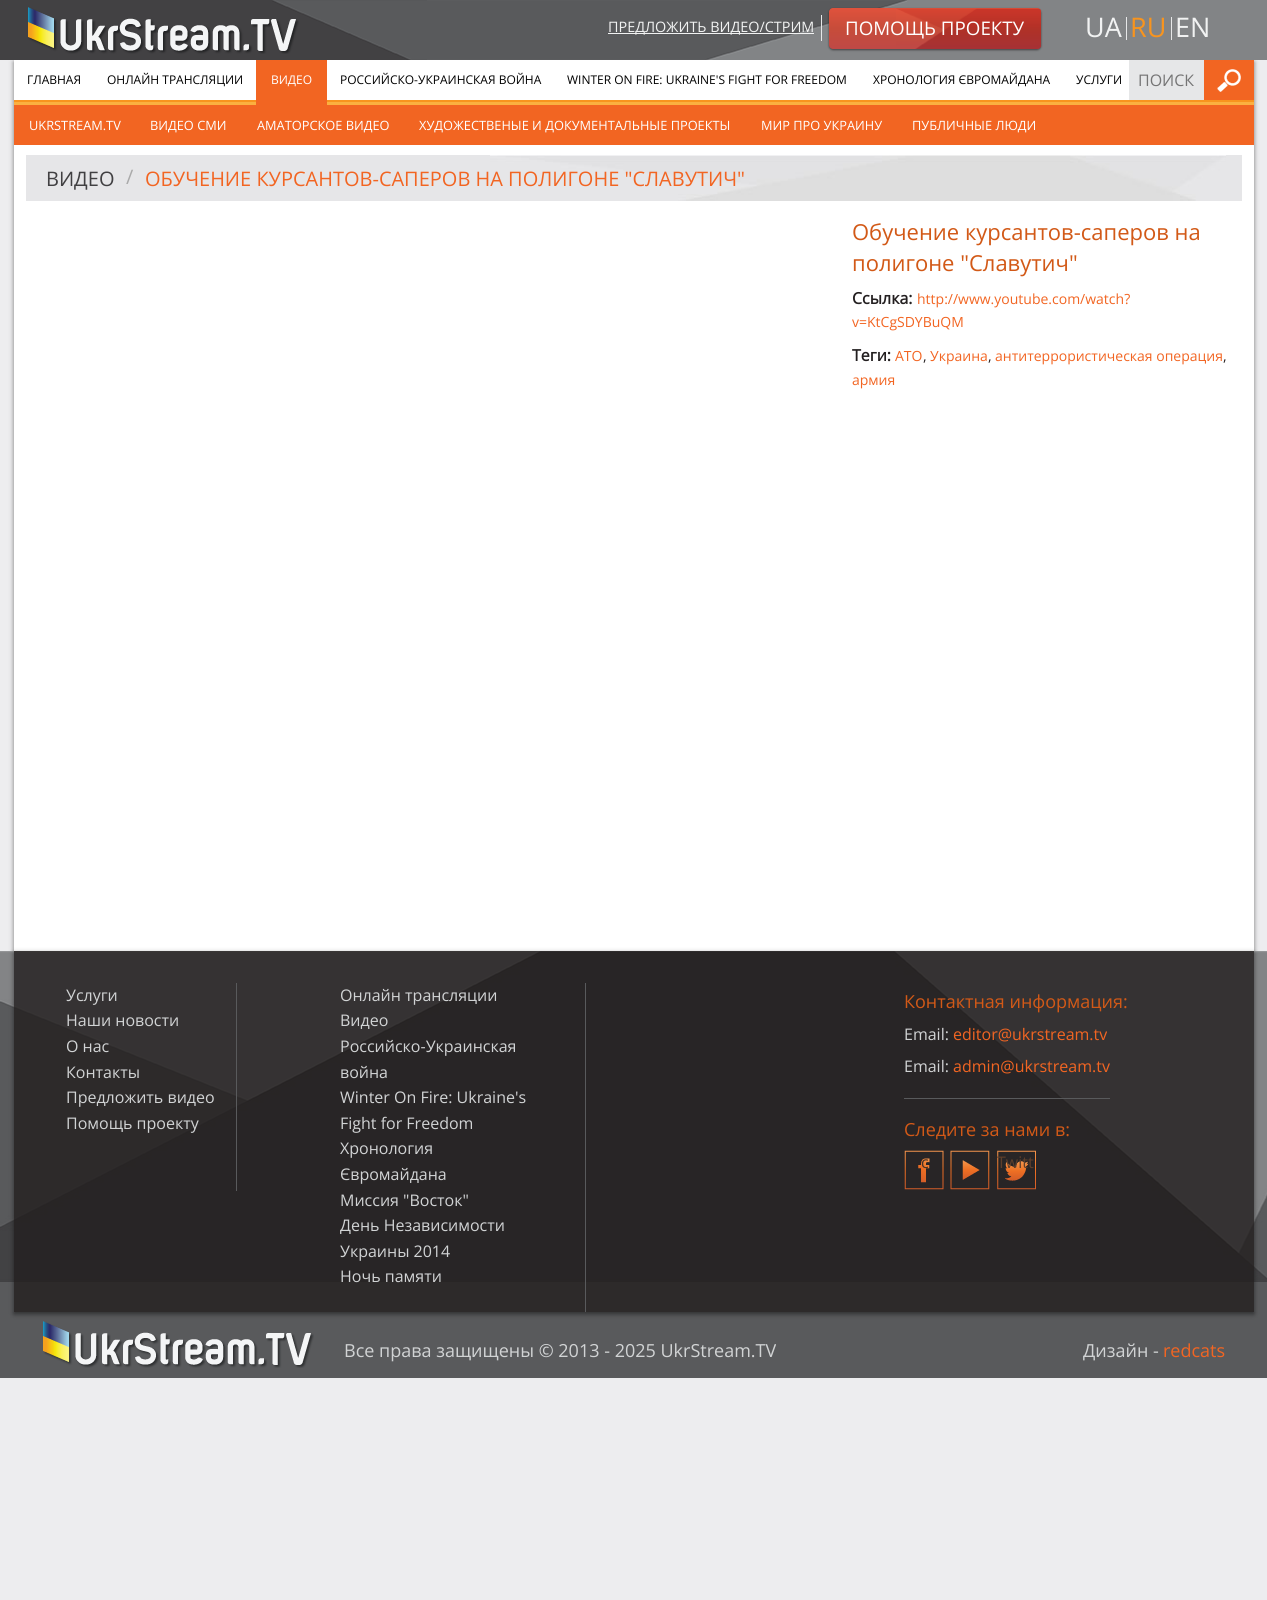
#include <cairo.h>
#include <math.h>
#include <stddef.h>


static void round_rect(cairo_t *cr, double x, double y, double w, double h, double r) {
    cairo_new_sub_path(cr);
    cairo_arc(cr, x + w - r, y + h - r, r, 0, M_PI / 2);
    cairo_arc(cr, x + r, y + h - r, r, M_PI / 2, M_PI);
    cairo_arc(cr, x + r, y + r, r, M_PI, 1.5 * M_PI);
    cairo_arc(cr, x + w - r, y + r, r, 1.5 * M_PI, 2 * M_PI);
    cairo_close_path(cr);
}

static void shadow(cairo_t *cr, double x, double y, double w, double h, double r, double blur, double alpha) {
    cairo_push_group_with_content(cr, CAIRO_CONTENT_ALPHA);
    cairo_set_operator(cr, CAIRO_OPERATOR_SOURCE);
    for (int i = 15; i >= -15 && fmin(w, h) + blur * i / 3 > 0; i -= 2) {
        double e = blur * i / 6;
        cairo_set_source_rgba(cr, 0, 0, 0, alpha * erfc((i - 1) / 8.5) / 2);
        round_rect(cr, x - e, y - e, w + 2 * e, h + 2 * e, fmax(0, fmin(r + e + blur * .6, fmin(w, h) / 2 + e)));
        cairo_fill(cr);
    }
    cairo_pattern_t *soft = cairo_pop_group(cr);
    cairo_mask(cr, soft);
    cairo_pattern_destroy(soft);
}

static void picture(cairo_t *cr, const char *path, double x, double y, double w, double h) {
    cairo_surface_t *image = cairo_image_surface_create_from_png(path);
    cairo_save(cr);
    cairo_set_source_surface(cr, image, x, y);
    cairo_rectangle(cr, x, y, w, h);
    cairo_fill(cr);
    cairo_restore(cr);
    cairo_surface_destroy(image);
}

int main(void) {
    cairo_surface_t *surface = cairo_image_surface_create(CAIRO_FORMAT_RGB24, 1267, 1600);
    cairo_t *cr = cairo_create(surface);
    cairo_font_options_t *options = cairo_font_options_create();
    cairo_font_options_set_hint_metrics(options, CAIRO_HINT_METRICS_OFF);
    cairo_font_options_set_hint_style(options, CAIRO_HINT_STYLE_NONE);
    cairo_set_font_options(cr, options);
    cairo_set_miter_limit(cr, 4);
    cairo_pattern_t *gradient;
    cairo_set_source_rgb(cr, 0.929, 0.929, 0.937);
    cairo_paint(cr);
    cairo_set_source_rgb(cr, 0, 0, 0);
    shadow(cr, 14, 62, 1240, 891, 0, 2.5, 0.5);
    cairo_set_source_rgb(cr, 0.259, 0.255, 0.263);
    cairo_rectangle(cr, 0, 0, 427, 60);
    cairo_fill(cr);
    cairo_set_source_rgb(cr, 0.51, 0.518, 0.525);
    cairo_rectangle(cr, 427, 0, 840, 60);
    cairo_fill(cr);
    picture(cr, "img1.png", 272, 0, 155, 60);
    picture(cr, "img2.png", 28, 7, 271, 47);
    picture(cr, "img3.png", 427, 0, 480, 60);
    cairo_set_source_rgb(cr, 0.945, 0.949, 0.949);
    cairo_rectangle(cr, 608, 33, 206, 1);
    cairo_fill(cr);
    cairo_select_font_face(cr, "Open Sans", CAIRO_FONT_SLANT_NORMAL, CAIRO_FONT_WEIGHT_NORMAL);
    cairo_set_font_size(cr, 14.4);
    cairo_move_to(cr, 608, 32);
    cairo_show_text(cr, "ПРЕДЛОЖИТЬ ВИДЕО/СТРИМ");
    cairo_set_source_rgb(cr, 0.902, 0.906, 0.91);
    cairo_rectangle(cr, 821, 15, 1, 26);
    cairo_fill(cr);
    cairo_set_source_rgb(cr, 0, 0, 0);
    shadow(cr, 829, 9, 212, 41, 4, 1, 0.5);
    gradient = cairo_pattern_create_linear(935, 8, 935, 49);
    cairo_pattern_add_color_stop_rgba(gradient, 0, 0.878, 0.322, 0.235, 1);
    cairo_pattern_add_color_stop_rgba(gradient, 0.5, 0.78, 0.298, 0.227, 1);
    cairo_pattern_add_color_stop_rgba(gradient, 1, 0.749, 0.286, 0.275, 1);
    cairo_set_source(cr, gradient);
    cairo_pattern_destroy(gradient);
    round_rect(cr, 829, 8, 212, 41, 4);
    cairo_fill(cr);
    picture(cr, "img4.png", 896, 8, 145, 41);
    cairo_set_font_size(cr, 18.75);
    cairo_set_source_rgb(cr, 1, 1, 1);
    cairo_move_to(cr, 845, 35);
    cairo_show_text(cr, "ПОМОЩЬ ПРОЕКТУ");
    cairo_set_font_size(cr, 27);
    cairo_set_source_rgb(cr, 0.945, 0.949, 0.949);
    cairo_move_to(cr, 1085, 37);
    cairo_show_text(cr, "UA");
    cairo_set_source_rgb(cr, 0.902, 0.906, 0.91);
    cairo_rectangle(cr, 1126, 17, 1, 23);
    cairo_fill(cr);
    cairo_set_source_rgb(cr, 0.969, 0.58, 0.118);
    cairo_move_to(cr, 1130, 37);
    cairo_show_text(cr, "RU");
    cairo_set_source_rgb(cr, 0.902, 0.906, 0.91);
    cairo_rectangle(cr, 1171, 17, 1, 23);
    cairo_fill(cr);
    cairo_set_source_rgb(cr, 0.945, 0.949, 0.949);
    cairo_move_to(cr, 1175, 37);
    cairo_show_text(cr, "EN");
    cairo_set_source_rgb(cr, 1, 1, 1);
    cairo_rectangle(cr, 14, 145, 1240, 806);
    cairo_fill(cr);
    cairo_rectangle(cr, 14, 60, 242, 40);
    cairo_fill(cr);
    cairo_set_font_size(cr, 12);
    cairo_set_source_rgb(cr, 0, 0, 0);
    cairo_move_to(cr, 27, 84);
    cairo_show_text(cr, "ГЛАВНАЯ");
    cairo_move_to(cr, 107, 84);
    cairo_show_text(cr, "ОНЛАЙН ТРАНСЛЯЦИИ");
    cairo_set_source_rgb(cr, 1, 1, 1);
    cairo_rectangle(cr, 327, 60, 802, 40);
    cairo_fill(cr);
    cairo_set_source_rgb(cr, 0, 0, 0);
    cairo_move_to(cr, 340, 84);
    cairo_show_text(cr, "РОССИЙСКО-УКРАИНСКАЯ ВОЙНА");
    cairo_move_to(cr, 873, 84);
    cairo_show_text(cr, "ХРОНОЛОГИЯ ЄВРОМАЙДАНА");
    cairo_set_source_rgb(cr, 0.984, 0.69, 0.251);
    cairo_rectangle(cr, 14, 102, 1240, 3);
    cairo_fill(cr);
    cairo_set_source_rgb(cr, 0.969, 0.58, 0.118);
    cairo_rectangle(cr, 14, 100, 1240, 2);
    cairo_fill(cr);
    cairo_set_source_rgb(cr, 0.949, 0.396, 0.133);
    cairo_rectangle(cr, 256, 60, 71, 45);
    cairo_fill(cr);
    cairo_set_source_rgb(cr, 1, 1, 1);
    cairo_move_to(cr, 271, 84);
    cairo_show_text(cr, "ВИДЕО");
    cairo_set_source_rgb(cr, 0.949, 0.396, 0.133);
    cairo_rectangle(cr, 1051, 105, 203, 40);
    cairo_fill(cr);
    cairo_rectangle(cr, 14, 105, 1037, 40);
    cairo_fill(cr);
    cairo_set_font_size(cr, 12.8);
    cairo_set_source_rgb(cr, 1, 1, 1);
    cairo_move_to(cr, 29, 130);
    cairo_show_text(cr, "UKRSTREAM.TV");
    cairo_move_to(cr, 150, 130);
    cairo_show_text(cr, "ВИДЕО СМИ");
    cairo_move_to(cr, 257, 130);
    cairo_show_text(cr, "АМАТОРСКОЕ ВИДЕО");
    cairo_move_to(cr, 419, 130);
    cairo_show_text(cr, "ХУДОЖЕСТВЕНЫЕ И ДОКУМЕНТАЛЬНЫЕ ПРОЕКТЫ");
    cairo_move_to(cr, 761, 130);
    cairo_show_text(cr, "МИР ПРО УКРАИНУ");
    cairo_move_to(cr, 912, 130);
    cairo_show_text(cr, "ПУБЛИЧНЫЕ ЛЮДИ");
    cairo_set_font_size(cr, 12);
    cairo_set_source_rgb(cr, 0, 0, 0);
    cairo_move_to(cr, 567, 84);
    cairo_show_text(cr, "WINTER ON FIRE: UKRAINE'S FIGHT FOR FREEDOM");
    cairo_move_to(cr, 1076, 84);
    cairo_show_text(cr, "УСЛУГИ");
    cairo_set_source_rgb(cr, 0.949, 0.396, 0.133);
    cairo_rectangle(cr, 1204, 60, 50, 40);
    cairo_fill(cr);
    cairo_set_source_rgb(cr, 0.902, 0.906, 0.91);
    cairo_rectangle(cr, 1129, 60, 75, 40);
    cairo_fill(cr);
    cairo_set_font_size(cr, 16);
    cairo_set_source_rgb(cr, 0.459, 0.459, 0.459);
    cairo_move_to(cr, 1138, 86);
    cairo_show_text(cr, "ПОИСК");
    picture(cr, "img5.png", 1217, 69, 24, 23);
    cairo_set_source_rgb(cr, 0.902, 0.902, 0.91);
    cairo_rectangle(cr, 26, 155, 1216, 46);
    cairo_fill(cr);
    cairo_set_font_size(cr, 20);
    cairo_set_source_rgb(cr, 0.255, 0.251, 0.259);
    cairo_move_to(cr, 46, 186);
    cairo_show_text(cr, "ВИДЕО");
    cairo_set_source_rgb(cr, 0.667, 0.667, 0.667);
    cairo_move_to(cr, 126, 184);
    cairo_show_text(cr, "/");
    picture(cr, "img6.png", 490, 155, 736, 46);
    cairo_set_source_rgb(cr, 0.949, 0.396, 0.133);
    cairo_move_to(cr, 145, 186);
    cairo_show_text(cr, "ОБУЧЕНИЕ КУРСАНТОВ-САПЕРОВ НА ПОЛИГОНЕ \"СЛАВУТИЧ\"");
    cairo_set_font_size(cr, 22);
    cairo_set_source_rgb(cr, 0.824, 0.349, 0.09);
    cairo_move_to(cr, 852, 240);
    cairo_show_text(cr, "Обучение курсантов-саперов на");
    cairo_move_to(cr, 852, 271);
    cairo_show_text(cr, "полигоне \"Славутич\"");
    cairo_select_font_face(cr, "Open Sans", CAIRO_FONT_SLANT_NORMAL, CAIRO_FONT_WEIGHT_BOLD);
    cairo_set_font_size(cr, 16);
    cairo_set_source_rgb(cr, 0.137, 0.122, 0.125);
    cairo_move_to(cr, 852, 304);
    cairo_show_text(cr, "Ссылка:");
    cairo_select_font_face(cr, "Open Sans", CAIRO_FONT_SLANT_NORMAL, CAIRO_FONT_WEIGHT_NORMAL);
    cairo_set_font_size(cr, 14);
    cairo_set_source_rgb(cr, 0.949, 0.396, 0.133);
    cairo_move_to(cr, 917, 304);
    cairo_show_text(cr, "http://www.youtube.com/watch?");
    cairo_move_to(cr, 852, 327);
    cairo_show_text(cr, "v=KtCgSDYBuQM");
    cairo_select_font_face(cr, "Open Sans", CAIRO_FONT_SLANT_NORMAL, CAIRO_FONT_WEIGHT_BOLD);
    cairo_set_font_size(cr, 16);
    cairo_set_source_rgb(cr, 0.137, 0.122, 0.125);
    cairo_move_to(cr, 852, 361);
    cairo_show_text(cr, "Теги:");
    cairo_select_font_face(cr, "Open Sans", CAIRO_FONT_SLANT_NORMAL, CAIRO_FONT_WEIGHT_NORMAL);
    cairo_set_font_size(cr, 14);
    cairo_set_source_rgb(cr, 0.949, 0.396, 0.133);
    cairo_move_to(cr, 895, 361);
    cairo_show_text(cr, "АТО");
    cairo_set_source_rgb(cr, 0.137, 0.122, 0.125);
    cairo_move_to(cr, 923, 361);
    cairo_show_text(cr, ",");
    cairo_set_source_rgb(cr, 0.949, 0.396, 0.133);
    cairo_move_to(cr, 930, 361);
    cairo_show_text(cr, "Украина");
    cairo_set_source_rgb(cr, 0.137, 0.122, 0.125);
    cairo_move_to(cr, 988, 361);
    cairo_show_text(cr, ",");
    cairo_set_source_rgb(cr, 0.949, 0.396, 0.133);
    cairo_move_to(cr, 995, 361);
    cairo_show_text(cr, "антитеррористическая операция");
    cairo_set_source_rgb(cr, 0.137, 0.122, 0.125);
    cairo_move_to(cr, 1223, 361);
    cairo_show_text(cr, ",");
    cairo_set_source_rgb(cr, 0.949, 0.396, 0.133);
    cairo_move_to(cr, 852, 385);
    cairo_show_text(cr, "армия");
    cairo_set_source_rgb(cr, 0.349, 0.353, 0.361);
    cairo_rectangle(cr, 0, 1282, 1267, 96);
    cairo_fill(cr);
    picture(cr, "img7.png", 0, 951, 1267, 331);
    cairo_save(cr);
    cairo_set_fill_rule(cr, CAIRO_FILL_RULE_EVEN_ODD);
    cairo_new_path(cr);
    cairo_move_to(cr, 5, 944);
    cairo_line_to(cr, 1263, 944);
    cairo_line_to(cr, 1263, 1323);
    cairo_line_to(cr, 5, 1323);
    cairo_close_path(cr);
    cairo_move_to(cr, 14, 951);
    cairo_line_to(cr, 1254, 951);
    cairo_line_to(cr, 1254, 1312);
    cairo_line_to(cr, 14, 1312);
    cairo_close_path(cr);
    cairo_clip(cr);
    cairo_set_source_rgb(cr, 0, 0, 0);
    shadow(cr, 14, 953, 1240, 361, 0, 2.5, 0.5);
    cairo_restore(cr);
    cairo_set_source_rgba(cr, 0.133, 0.122, 0.122, 0.8);
    cairo_rectangle(cr, 14, 951, 1240, 361);
    cairo_fill(cr);
    cairo_set_source_rgb(cr, 0.349, 0.353, 0.361);
    cairo_rectangle(cr, 236, 983, 1, 208);
    cairo_fill(cr);
    cairo_set_font_size(cr, 16);
    cairo_set_source_rgb(cr, 0.82, 0.827, 0.831);
    cairo_move_to(cr, 66, 1001);
    cairo_show_text(cr, "Услуги");
    cairo_move_to(cr, 66, 1026);
    cairo_show_text(cr, "Наши новости");
    cairo_move_to(cr, 66, 1052);
    cairo_show_text(cr, "О нас");
    cairo_move_to(cr, 66, 1078);
    cairo_show_text(cr, "Контакты");
    cairo_move_to(cr, 66, 1103);
    cairo_show_text(cr, "Предложить видео");
    cairo_move_to(cr, 66, 1129);
    cairo_show_text(cr, "Помощь проекту");
    cairo_set_source_rgb(cr, 0.349, 0.353, 0.361);
    cairo_rectangle(cr, 585, 983, 1, 329);
    cairo_fill(cr);
    cairo_set_source_rgb(cr, 0.82, 0.827, 0.831);
    cairo_move_to(cr, 340, 1001);
    cairo_show_text(cr, "Онлайн трансляции");
    cairo_move_to(cr, 340, 1026);
    cairo_show_text(cr, "Видео");
    cairo_move_to(cr, 340, 1052);
    cairo_show_text(cr, "Российско-Украинская");
    cairo_move_to(cr, 340, 1078);
    cairo_show_text(cr, "война");
    cairo_move_to(cr, 340, 1103);
    cairo_show_text(cr, "Winter On Fire: Ukraine's");
    cairo_move_to(cr, 340, 1129);
    cairo_show_text(cr, "Fight for Freedom");
    cairo_move_to(cr, 340, 1154);
    cairo_show_text(cr, "Хронология");
    cairo_move_to(cr, 340, 1180);
    cairo_show_text(cr, "Євромайдана");
    cairo_move_to(cr, 340, 1206);
    cairo_show_text(cr, "Миссия \"Восток\"");
    cairo_move_to(cr, 340, 1231);
    cairo_show_text(cr, "День Независимости");
    cairo_move_to(cr, 340, 1257);
    cairo_show_text(cr, "Украины 2014");
    cairo_move_to(cr, 340, 1282);
    cairo_show_text(cr, "Ночь памяти");
    cairo_set_font_size(cr, 18);
    cairo_set_source_rgb(cr, 0.824, 0.349, 0.09);
    cairo_move_to(cr, 904, 1008);
    cairo_show_text(cr, "Контактная информация:");
    cairo_set_source_rgb(cr, 0.349, 0.353, 0.361);
    cairo_rectangle(cr, 904, 1098, 206, 1);
    cairo_fill(cr);
    cairo_set_font_size(cr, 16);
    cairo_set_source_rgb(cr, 0.82, 0.827, 0.831);
    cairo_move_to(cr, 904, 1040);
    cairo_show_text(cr, "Email:");
    cairo_set_source_rgb(cr, 0.949, 0.396, 0.133);
    cairo_move_to(cr, 953, 1040);
    cairo_show_text(cr, "editor@ukrstream.tv");
    cairo_set_source_rgb(cr, 0.82, 0.827, 0.831);
    cairo_move_to(cr, 904, 1072);
    cairo_show_text(cr, "Email:");
    cairo_set_source_rgb(cr, 0.949, 0.396, 0.133);
    cairo_move_to(cr, 953, 1072);
    cairo_show_text(cr, "admin@ukrstream.tv");
    cairo_set_font_size(cr, 18);
    cairo_set_source_rgb(cr, 0.824, 0.349, 0.09);
    cairo_move_to(cr, 904, 1136);
    cairo_show_text(cr, "Следите за нами в:");
    picture(cr, "img8.png", 904, 1150, 40, 40);
    cairo_set_font_size(cr, 16);
    cairo_set_source_rgb(cr, 0.263, 0.196, 0.157);
    cairo_move_to(cr, 921, 1168);
    cairo_show_text(cr, "c");
    picture(cr, "img9.png", 950, 1150, 40, 40);
    picture(cr, "img10.png", 997, 1150, 39, 40);
    cairo_set_source_rgb(cr, 0.369, 0.247, 0.169);
    cairo_move_to(cr, 997, 1168);
    cairo_show_text(cr, "Twitt");
    picture(cr, "img11.png", 43, 1321, 271, 47);
    cairo_set_font_size(cr, 18);
    cairo_set_source_rgb(cr, 0.82, 0.827, 0.831);
    cairo_move_to(cr, 344, 1357);
    cairo_show_text(cr, "Все права защищены © 2013 - 2025 UkrStream.TV");
    cairo_move_to(cr, 1083, 1357);
    cairo_show_text(cr, "Дизайн -");
    cairo_set_source_rgb(cr, 0.949, 0.396, 0.133);
    cairo_move_to(cr, 1163, 1357);
    cairo_show_text(cr, "redcats");
    cairo_surface_write_to_png(surface, "page.png");
    cairo_font_options_destroy(options);
    cairo_destroy(cr);
    cairo_surface_destroy(surface);
    return 0;
}
